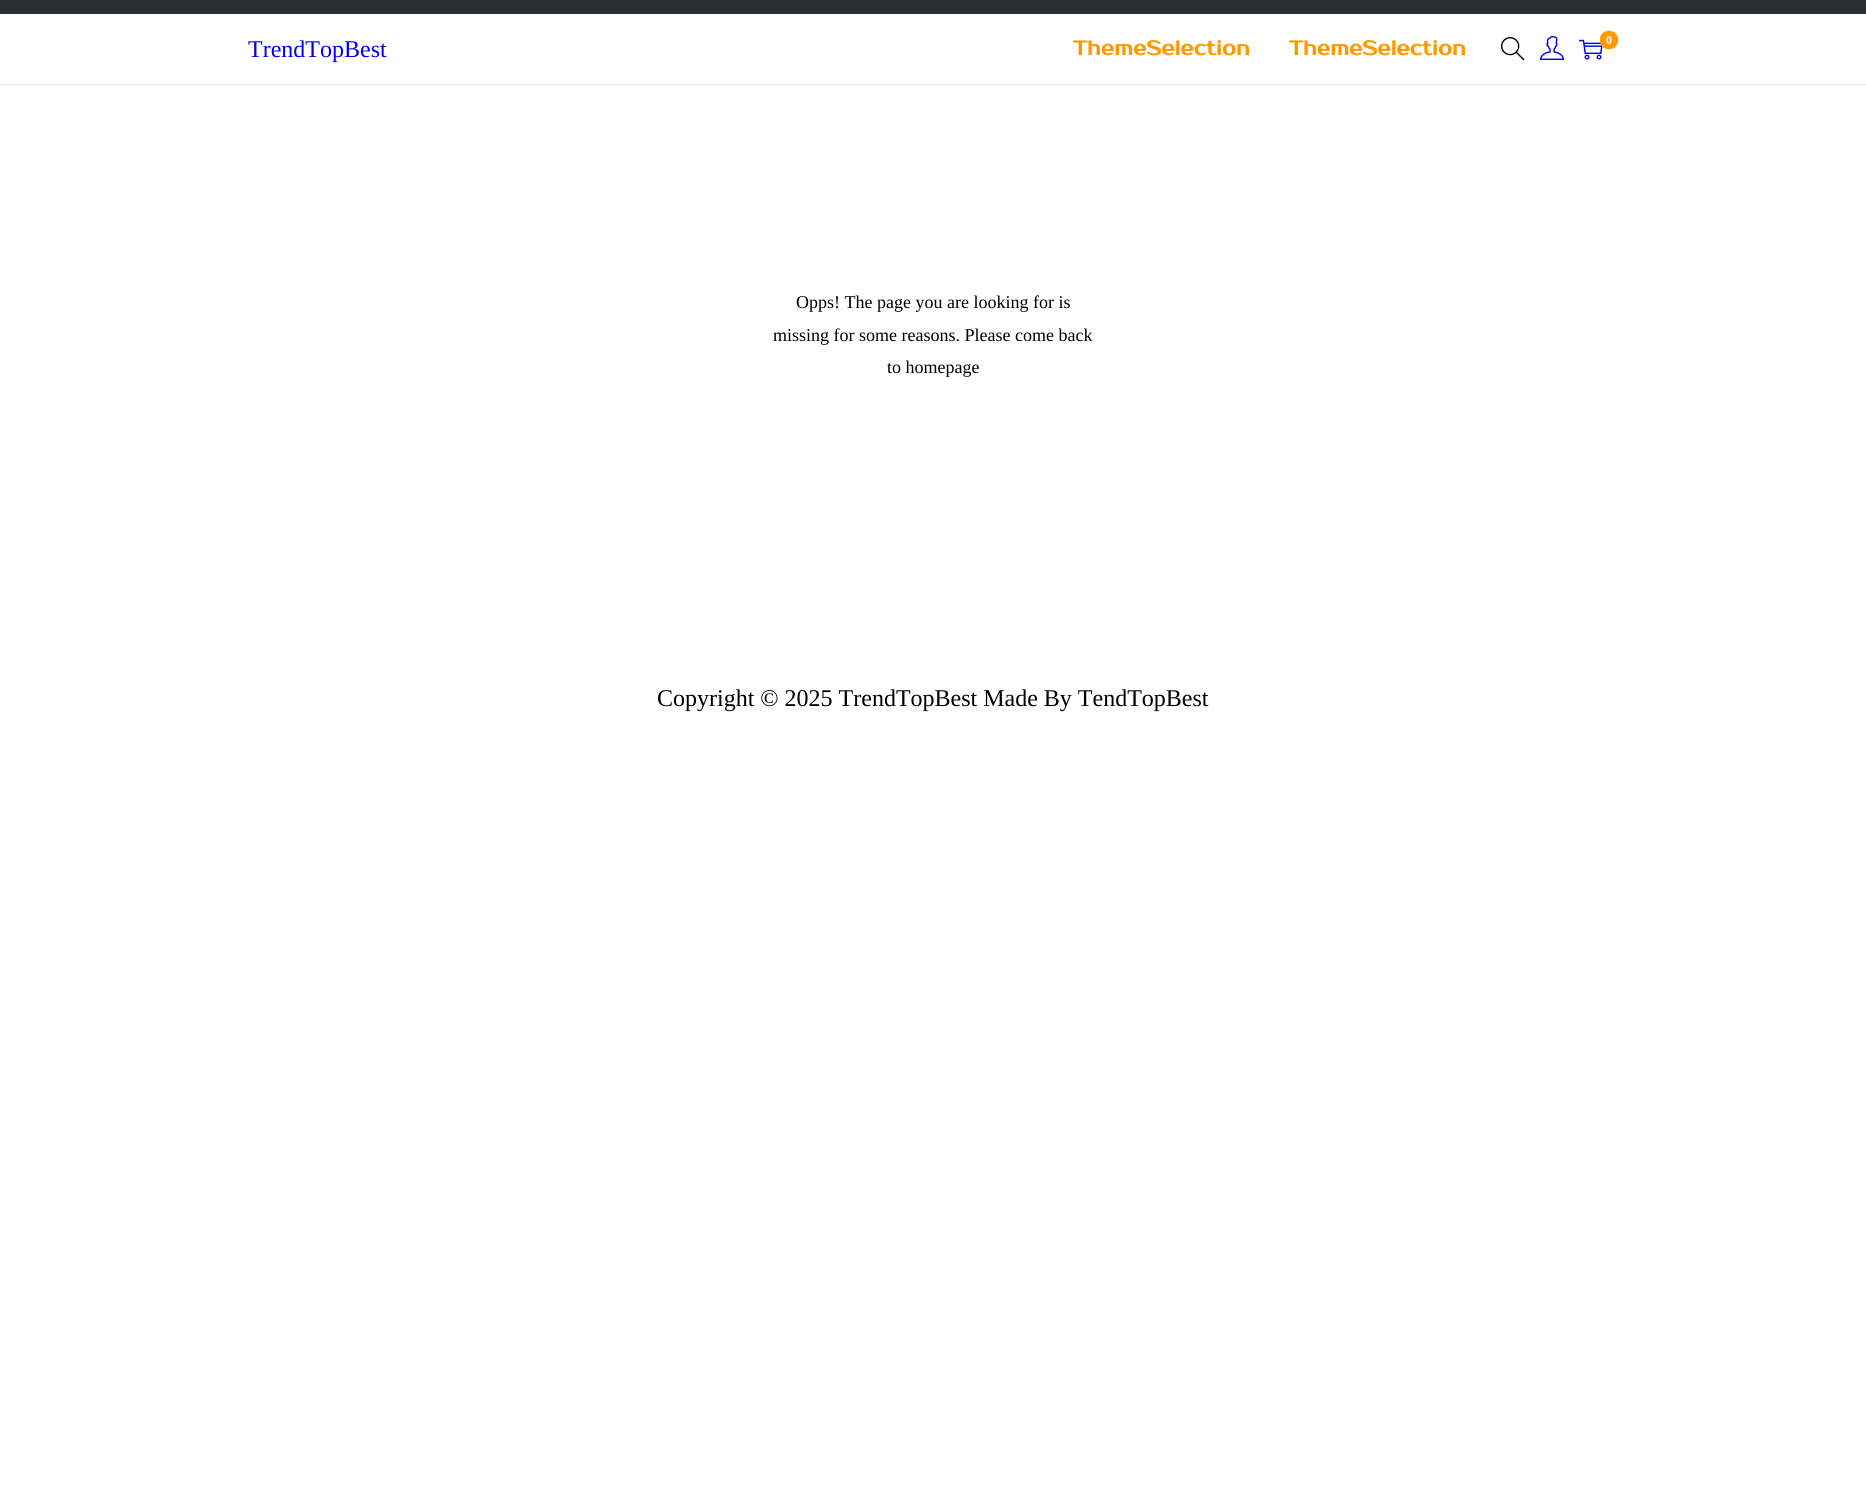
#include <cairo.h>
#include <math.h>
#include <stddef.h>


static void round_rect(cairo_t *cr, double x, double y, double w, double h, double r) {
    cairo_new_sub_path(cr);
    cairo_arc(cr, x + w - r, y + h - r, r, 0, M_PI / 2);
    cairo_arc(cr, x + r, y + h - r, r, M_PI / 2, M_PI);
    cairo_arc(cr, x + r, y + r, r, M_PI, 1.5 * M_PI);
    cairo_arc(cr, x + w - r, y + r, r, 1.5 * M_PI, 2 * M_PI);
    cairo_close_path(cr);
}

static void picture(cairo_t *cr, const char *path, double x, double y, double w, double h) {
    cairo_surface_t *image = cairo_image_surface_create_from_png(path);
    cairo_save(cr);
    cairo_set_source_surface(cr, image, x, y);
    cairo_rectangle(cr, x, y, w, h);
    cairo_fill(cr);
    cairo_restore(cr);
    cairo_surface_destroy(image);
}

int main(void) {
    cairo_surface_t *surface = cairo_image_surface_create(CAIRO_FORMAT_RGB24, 1866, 1489);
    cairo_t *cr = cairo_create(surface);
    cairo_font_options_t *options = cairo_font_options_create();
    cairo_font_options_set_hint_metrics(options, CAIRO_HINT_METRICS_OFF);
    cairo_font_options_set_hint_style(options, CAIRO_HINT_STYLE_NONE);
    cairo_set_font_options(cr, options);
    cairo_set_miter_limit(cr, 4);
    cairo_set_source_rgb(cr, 1, 1, 1);
    cairo_paint(cr);
    cairo_set_source_rgb(cr, 0.161, 0.184, 0.204);
    cairo_rectangle(cr, 0, 0, 1866, 14);
    cairo_fill(cr);
    cairo_set_source_rgb(cr, 0.918, 0.918, 0.918);
    cairo_rectangle(cr, 0, 84, 1866, 1);
    cairo_fill(cr);
    cairo_select_font_face(cr, "Liberation Serif", CAIRO_FONT_SLANT_NORMAL, CAIRO_FONT_WEIGHT_NORMAL);
    cairo_set_font_size(cr, 24);
    cairo_set_source_rgb(cr, 0, 0, 0.933);
    cairo_move_to(cr, 248, 57);
    cairo_show_text(cr, "TrendTopBest");
    cairo_select_font_face(cr, "Prosto One", CAIRO_FONT_SLANT_NORMAL, CAIRO_FONT_WEIGHT_BOLD);
    cairo_set_font_size(cr, 20);
    cairo_set_source_rgb(cr, 1, 0.6, 0);
    cairo_move_to(cr, 1073, 55);
    cairo_show_text(cr, "ThemeSelection");
    cairo_move_to(cr, 1289, 55);
    cairo_show_text(cr, "ThemeSelection");
    picture(cr, "img1.png", 1501, 37, 24, 24);
    picture(cr, "img2.png", 1540, 36, 24, 24);
    picture(cr, "img3.png", 1579, 39, 24, 21);
    round_rect(cr, 1600, 31, 18, 18, 8);
    cairo_fill(cr);
    cairo_select_font_face(cr, "Liberation Serif", CAIRO_FONT_SLANT_NORMAL, CAIRO_FONT_WEIGHT_BOLD);
    cairo_set_font_size(cr, 12);
    cairo_set_source_rgb(cr, 1, 1, 1);
    cairo_move_to(cr, 1606, 44);
    cairo_show_text(cr, "0");
    cairo_select_font_face(cr, "Liberation Serif", CAIRO_FONT_SLANT_NORMAL, CAIRO_FONT_WEIGHT_NORMAL);
    cairo_set_font_size(cr, 18);
    cairo_set_source_rgb(cr, 0, 0, 0);
    cairo_move_to(cr, 796, 308);
    cairo_show_text(cr, "Opps! The page you are looking for is");
    cairo_move_to(cr, 773, 341);
    cairo_show_text(cr, "missing for some reasons. Please come back");
    cairo_move_to(cr, 887, 373);
    cairo_show_text(cr, "to homepage");
    cairo_set_font_size(cr, 24);
    cairo_move_to(cr, 657, 706);
    cairo_show_text(cr, "Copyright © 2025 TrendTopBest Made By TendTopBest");
    cairo_surface_write_to_png(surface, "page.png");
    cairo_font_options_destroy(options);
    cairo_destroy(cr);
    cairo_surface_destroy(surface);
    return 0;
}
